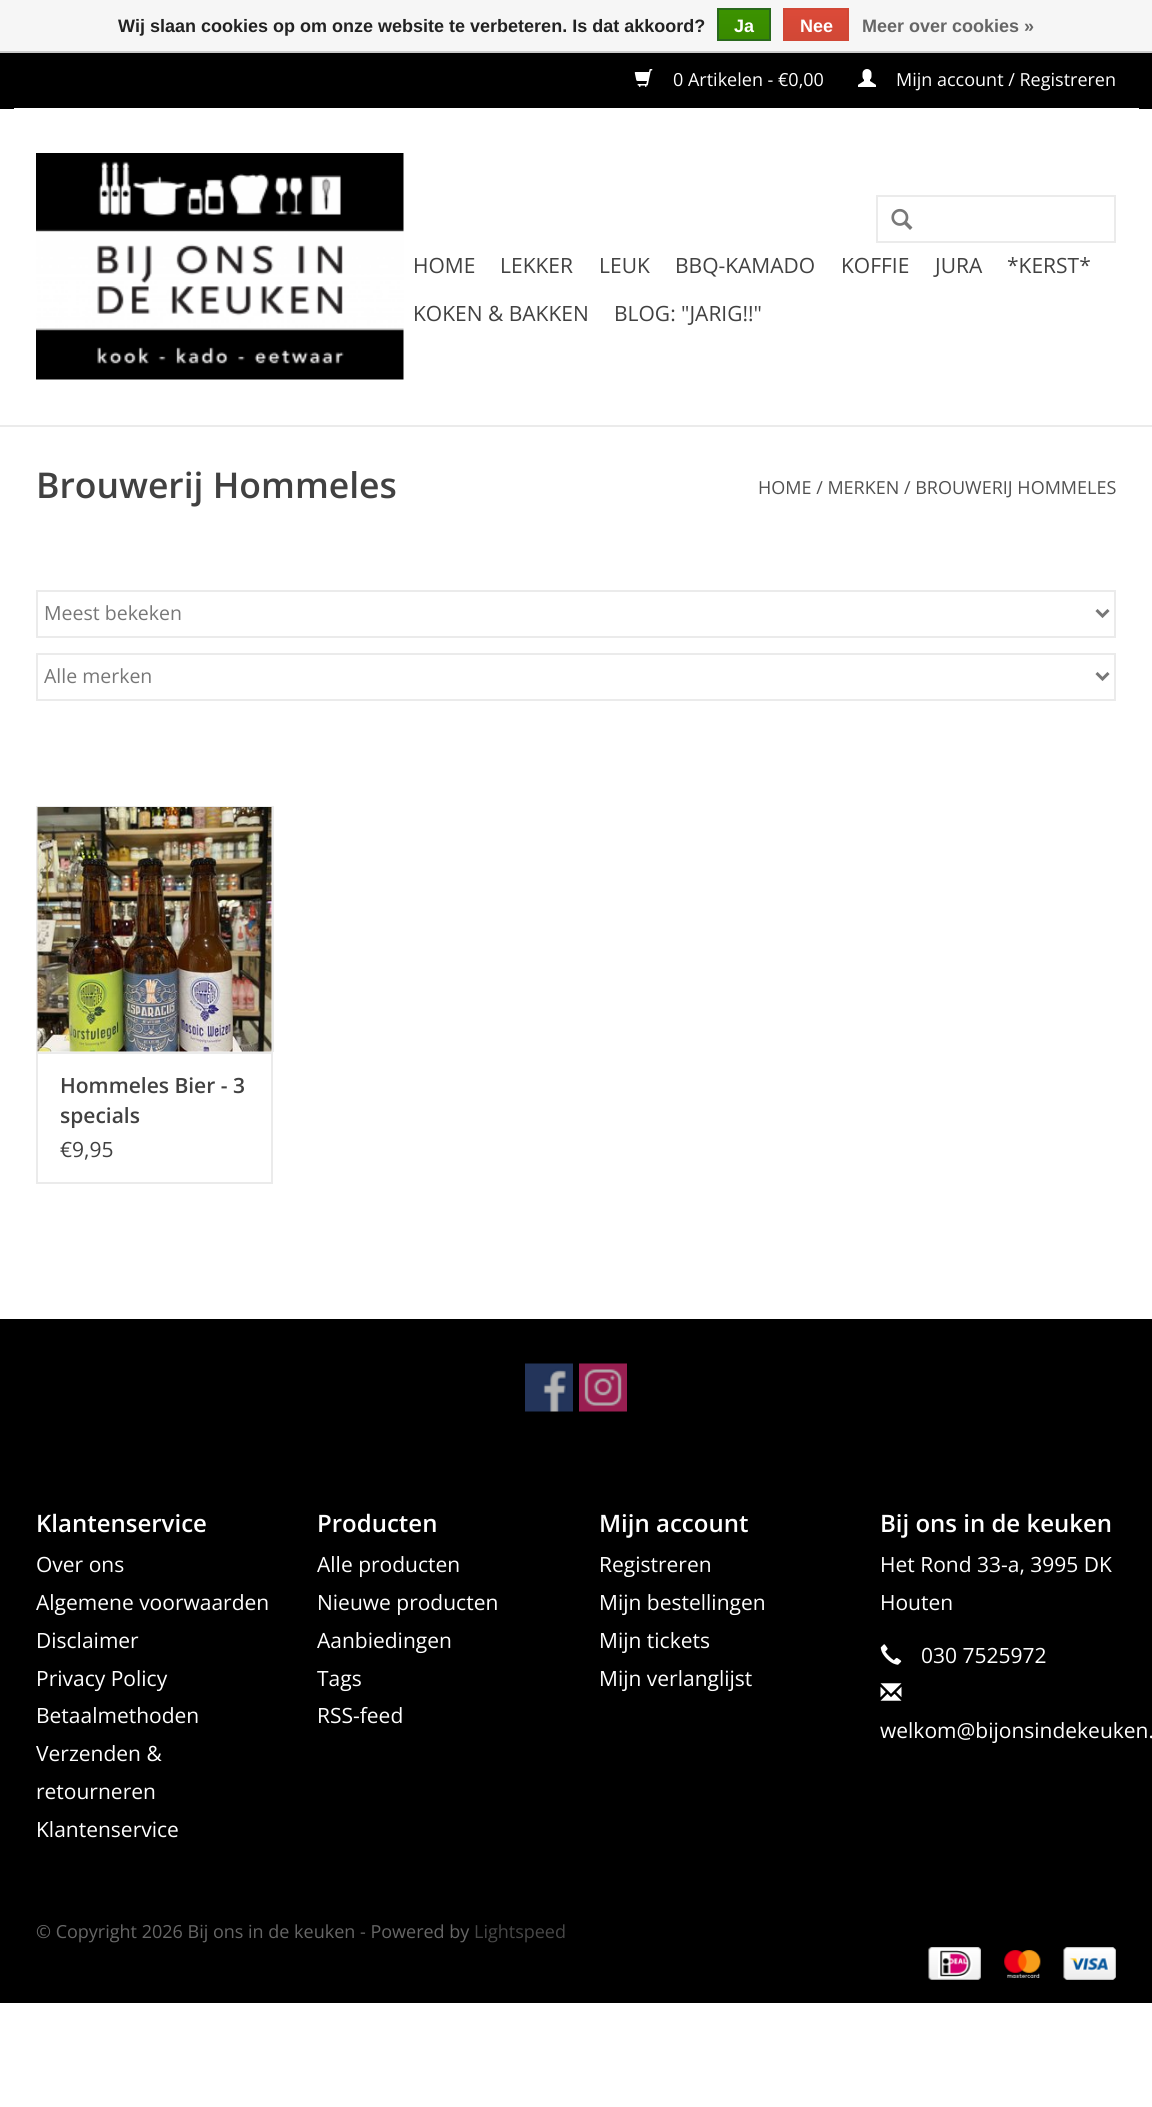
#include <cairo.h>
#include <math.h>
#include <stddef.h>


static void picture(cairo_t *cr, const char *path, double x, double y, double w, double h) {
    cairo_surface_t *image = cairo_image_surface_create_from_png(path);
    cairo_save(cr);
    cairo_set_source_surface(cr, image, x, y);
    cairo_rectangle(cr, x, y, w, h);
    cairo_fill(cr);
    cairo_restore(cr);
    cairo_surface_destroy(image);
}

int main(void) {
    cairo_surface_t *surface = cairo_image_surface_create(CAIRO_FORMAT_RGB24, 1152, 2107);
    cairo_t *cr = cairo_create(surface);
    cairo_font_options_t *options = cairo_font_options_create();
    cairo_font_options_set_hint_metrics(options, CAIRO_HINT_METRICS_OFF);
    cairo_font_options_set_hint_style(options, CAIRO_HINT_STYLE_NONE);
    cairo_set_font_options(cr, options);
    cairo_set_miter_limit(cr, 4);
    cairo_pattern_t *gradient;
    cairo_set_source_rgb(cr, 1, 1, 1);
    cairo_paint(cr);
    cairo_set_source_rgb(cr, 0.961, 0.961, 0.961);
    cairo_rectangle(cr, 0, 0, 1152, 51);
    cairo_fill(cr);
    cairo_set_source_rgb(cr, 0.8, 0.8, 0.8);
    cairo_rectangle(cr, 0, 51, 1152, 2);
    cairo_fill(cr);
    cairo_select_font_face(cr, "Liberation Sans", CAIRO_FONT_SLANT_NORMAL, CAIRO_FONT_WEIGHT_BOLD);
    cairo_set_font_size(cr, 18);
    cairo_set_source_rgb(cr, 0.133, 0.133, 0.133);
    cairo_move_to(cr, 118, 32);
    cairo_show_text(cr, "Wij slaan cookies op om onze website te verbeteren. Is dat akkoord?");
    gradient = cairo_pattern_create_linear(744, 9, 744, 39);
    cairo_pattern_add_color_stop_rgba(gradient, 0, 0.235, 0.576, 0, 1);
    cairo_pattern_add_color_stop_rgba(gradient, 1, 0.224, 0.541, 0, 1);
    cairo_set_source(cr, gradient);
    cairo_pattern_destroy(gradient);
    cairo_rectangle(cr, 719, 10, 50, 29);
    cairo_fill(cr);
    cairo_rectangle(cr, 718, 9, 52, 31);
    cairo_set_source_rgb(cr, 0.161, 0.412, 0.114);
    cairo_stroke(cr);
    cairo_set_source_rgb(cr, 1, 1, 1);
    cairo_move_to(cr, 734, 32);
    cairo_show_text(cr, "Ja");
    gradient = cairo_pattern_create_linear(816, 9, 816, 39);
    cairo_pattern_add_color_stop_rgba(gradient, 0, 0.863, 0.29, 0.22, 1);
    cairo_pattern_add_color_stop_rgba(gradient, 1, 0.82, 0.282, 0.212, 1);
    cairo_set_source(cr, gradient);
    cairo_pattern_destroy(gradient);
    cairo_rectangle(cr, 785, 10, 62, 29);
    cairo_fill(cr);
    cairo_rectangle(cr, 784, 9, 64, 31);
    cairo_set_source_rgb(cr, 0.82, 0.282, 0.212);
    cairo_stroke(cr);
    cairo_set_source_rgb(cr, 1, 1, 1);
    cairo_move_to(cr, 800, 32);
    cairo_show_text(cr, "Nee");
    cairo_set_source_rgb(cr, 0.4, 0.4, 0.4);
    cairo_move_to(cr, 862, 32);
    cairo_show_text(cr, "Meer over cookies »");
    cairo_set_source_rgb(cr, 0.918, 0.918, 0.918);
    cairo_rectangle(cr, 0, 425, 1152, 2);
    cairo_fill(cr);
    cairo_set_source_rgb(cr, 0, 0, 0);
    cairo_rectangle(cr, 0, 53, 1152, 56);
    cairo_fill(cr);
    picture(cr, "img1.png", 634, 69, 19, 18);
    cairo_select_font_face(cr, "Open Sans", CAIRO_FONT_SLANT_NORMAL, CAIRO_FONT_WEIGHT_NORMAL);
    cairo_set_source_rgb(cr, 1, 1, 1);
    cairo_move_to(cr, 673, 86);
    cairo_show_text(cr, "0 Artikelen - €0,00");
    picture(cr, "img2.png", 858, 69, 18, 18);
    cairo_move_to(cr, 896, 86);
    cairo_show_text(cr, "Mijn account / Registreren");
    cairo_rectangle(cr, 14, 108, 1125, 1);
    cairo_fill(cr);
    picture(cr, "img3.png", 36, 153, 368, 227);
    cairo_rectangle(cr, 877, 196, 238, 46);
    cairo_set_source_rgb(cr, 0.918, 0.918, 0.918);
    cairo_stroke(cr);
    picture(cr, "img4.png", 891, 208, 22, 22);
    cairo_set_font_size(cr, 21);
    cairo_set_source_rgb(cr, 0.255, 0.255, 0.255);
    cairo_move_to(cr, 413, 273);
    cairo_show_text(cr, "HOME");
    cairo_move_to(cr, 500, 273);
    cairo_show_text(cr, "LEKKER");
    cairo_move_to(cr, 599, 273);
    cairo_show_text(cr, "LEUK");
    cairo_move_to(cr, 675, 273);
    cairo_show_text(cr, "BBQ-KAMADO");
    cairo_move_to(cr, 841, 273);
    cairo_show_text(cr, "KOFFIE");
    cairo_move_to(cr, 935, 273);
    cairo_show_text(cr, "JURA");
    cairo_move_to(cr, 1007, 273);
    cairo_show_text(cr, "*KERST*");
    cairo_move_to(cr, 413, 321);
    cairo_show_text(cr, "KOKEN & BAKKEN");
    cairo_move_to(cr, 614, 321);
    cairo_show_text(cr, "BLOG: \"JARIG!!\"");
    cairo_select_font_face(cr, "Open Sans SemiBold", CAIRO_FONT_SLANT_NORMAL, CAIRO_FONT_WEIGHT_NORMAL);
    cairo_set_font_size(cr, 35.5);
    cairo_move_to(cr, 36, 498);
    cairo_show_text(cr, "Brouwerij Hommeles");
    cairo_select_font_face(cr, "Open Sans", CAIRO_FONT_SLANT_NORMAL, CAIRO_FONT_WEIGHT_NORMAL);
    cairo_set_font_size(cr, 18);
    cairo_set_source_rgb(cr, 0.314, 0.314, 0.314);
    cairo_move_to(cr, 758, 494);
    cairo_show_text(cr, "HOME / MERKEN / BROUWERIJ HOMMELES");
    cairo_rectangle(cr, 37, 591, 1078, 46);
    cairo_set_source_rgb(cr, 0.918, 0.918, 0.918);
    cairo_stroke(cr);
    cairo_new_path(cr);
    cairo_move_to(cr, 1096.5, 610);
    cairo_line_to(cr, 1102.5, 616);
    cairo_line_to(cr, 1108.5, 610);
    cairo_set_source_rgb(cr, 0.467, 0.467, 0.467);
    cairo_set_line_width(cr, 3);
    cairo_stroke(cr);
    cairo_set_font_size(cr, 19.5);
    cairo_move_to(cr, 44, 620);
    cairo_show_text(cr, "Meest bekeken");
    cairo_rectangle(cr, 37, 654, 1078, 46);
    cairo_set_source_rgb(cr, 0.918, 0.918, 0.918);
    cairo_set_line_width(cr, 2);
    cairo_stroke(cr);
    cairo_new_path(cr);
    cairo_move_to(cr, 1096.5, 673);
    cairo_line_to(cr, 1102.5, 679);
    cairo_line_to(cr, 1108.5, 673);
    cairo_set_source_rgb(cr, 0.467, 0.467, 0.467);
    cairo_set_line_width(cr, 3);
    cairo_stroke(cr);
    cairo_move_to(cr, 44, 683);
    cairo_show_text(cr, "Alle merken");
    cairo_set_source_rgb(cr, 0.969, 0.969, 0.969);
    cairo_rectangle(cr, 38, 808, 234, 244);
    cairo_fill(cr);
    cairo_set_source_rgb(cr, 0.918, 0.918, 0.918);
    cairo_rectangle(cr, 36, 806, 237, 2);
    cairo_fill(cr);
    cairo_rectangle(cr, 272, 806, 2, 246);
    cairo_fill(cr);
    cairo_rectangle(cr, 36, 806, 2, 246);
    cairo_fill(cr);
    picture(cr, "img5.png", 37, 807, 235, 245);
    cairo_rectangle(cr, 37, 1053, 235, 130);
    cairo_set_line_width(cr, 2);
    cairo_stroke(cr);
    cairo_select_font_face(cr, "Open Sans SemiBold", CAIRO_FONT_SLANT_NORMAL, CAIRO_FONT_WEIGHT_NORMAL);
    cairo_set_font_size(cr, 21);
    cairo_set_source_rgb(cr, 0.255, 0.255, 0.255);
    cairo_move_to(cr, 60, 1093);
    cairo_show_text(cr, "Hommeles Bier - 3");
    cairo_move_to(cr, 60, 1123);
    cairo_show_text(cr, "specials");
    cairo_select_font_face(cr, "Open Sans", CAIRO_FONT_SLANT_NORMAL, CAIRO_FONT_WEIGHT_NORMAL);
    cairo_move_to(cr, 60, 1157);
    cairo_show_text(cr, "€9,95");
    cairo_set_source_rgb(cr, 0, 0, 0);
    cairo_rectangle(cr, 0, 1319, 1152, 684);
    cairo_fill(cr);
    picture(cr, "img6.png", 525, 1363, 48, 49);
    picture(cr, "img7.png", 579, 1363, 48, 49);
    cairo_select_font_face(cr, "Open Sans SemiBold", CAIRO_FONT_SLANT_NORMAL, CAIRO_FONT_WEIGHT_NORMAL);
    cairo_set_font_size(cr, 24);
    cairo_set_source_rgb(cr, 1, 1, 1);
    cairo_move_to(cr, 36, 1532);
    cairo_show_text(cr, "Klantenservice");
    cairo_select_font_face(cr, "Open Sans", CAIRO_FONT_SLANT_NORMAL, CAIRO_FONT_WEIGHT_NORMAL);
    cairo_set_font_size(cr, 21);
    cairo_move_to(cr, 36, 1572);
    cairo_show_text(cr, "Over ons");
    cairo_move_to(cr, 36, 1610);
    cairo_show_text(cr, "Algemene voorwaarden");
    cairo_move_to(cr, 36, 1648);
    cairo_show_text(cr, "Disclaimer");
    cairo_move_to(cr, 36, 1686);
    cairo_show_text(cr, "Privacy Policy");
    cairo_move_to(cr, 36, 1723);
    cairo_show_text(cr, "Betaalmethoden");
    cairo_move_to(cr, 36, 1761);
    cairo_show_text(cr, "Verzenden &");
    cairo_move_to(cr, 36, 1799);
    cairo_show_text(cr, "retourneren");
    cairo_move_to(cr, 36, 1837);
    cairo_show_text(cr, "Klantenservice");
    cairo_select_font_face(cr, "Open Sans SemiBold", CAIRO_FONT_SLANT_NORMAL, CAIRO_FONT_WEIGHT_NORMAL);
    cairo_set_font_size(cr, 24);
    cairo_move_to(cr, 317, 1532);
    cairo_show_text(cr, "Producten");
    cairo_select_font_face(cr, "Open Sans", CAIRO_FONT_SLANT_NORMAL, CAIRO_FONT_WEIGHT_NORMAL);
    cairo_set_font_size(cr, 21);
    cairo_move_to(cr, 317, 1572);
    cairo_show_text(cr, "Alle producten");
    cairo_move_to(cr, 317, 1610);
    cairo_show_text(cr, "Nieuwe producten");
    cairo_move_to(cr, 317, 1648);
    cairo_show_text(cr, "Aanbiedingen");
    cairo_move_to(cr, 317, 1686);
    cairo_show_text(cr, "Tags");
    cairo_move_to(cr, 317, 1723);
    cairo_show_text(cr, "RSS-feed");
    cairo_select_font_face(cr, "Open Sans SemiBold", CAIRO_FONT_SLANT_NORMAL, CAIRO_FONT_WEIGHT_NORMAL);
    cairo_set_font_size(cr, 24);
    cairo_move_to(cr, 599, 1532);
    cairo_show_text(cr, "Mijn account");
    cairo_select_font_face(cr, "Open Sans", CAIRO_FONT_SLANT_NORMAL, CAIRO_FONT_WEIGHT_NORMAL);
    cairo_set_font_size(cr, 21);
    cairo_move_to(cr, 599, 1572);
    cairo_show_text(cr, "Registreren");
    cairo_move_to(cr, 599, 1610);
    cairo_show_text(cr, "Mijn bestellingen");
    cairo_move_to(cr, 599, 1648);
    cairo_show_text(cr, "Mijn tickets");
    cairo_move_to(cr, 599, 1686);
    cairo_show_text(cr, "Mijn verlanglijst");
    cairo_select_font_face(cr, "Open Sans SemiBold", CAIRO_FONT_SLANT_NORMAL, CAIRO_FONT_WEIGHT_NORMAL);
    cairo_set_font_size(cr, 24);
    cairo_move_to(cr, 880, 1532);
    cairo_show_text(cr, "Bij ons in de keuken");
    cairo_select_font_face(cr, "Open Sans", CAIRO_FONT_SLANT_NORMAL, CAIRO_FONT_WEIGHT_NORMAL);
    cairo_set_font_size(cr, 21);
    cairo_move_to(cr, 880, 1572);
    cairo_show_text(cr, "Het Rond 33-a, 3995 DK");
    cairo_move_to(cr, 880, 1610);
    cairo_show_text(cr, "Houten");
    picture(cr, "img8.png", 880, 1644, 22, 21);
    cairo_move_to(cr, 921, 1663);
    cairo_show_text(cr, "030 7525972");
    picture(cr, "img9.png", 880, 1683, 22, 18);
    cairo_move_to(cr, 880, 1738);
    cairo_show_text(cr, "welkom@bijonsindekeuken.");
    cairo_set_font_size(cr, 18);
    cairo_set_source_rgb(cr, 0.4, 0.4, 0.4);
    cairo_move_to(cr, 36, 1938);
    cairo_show_text(cr, "© Copyright 2026 Bij ons in de keuken - Powered by");
    cairo_set_source_rgb(cr, 0.278, 0.278, 0.278);
    cairo_move_to(cr, 474, 1938);
    cairo_show_text(cr, "Lightspeed");
    picture(cr, "img10.png", 928, 1947, 53, 33);
    picture(cr, "img11.png", 1004, 1950, 37, 28);
    picture(cr, "img12.png", 1063, 1947, 53, 33);
    cairo_surface_write_to_png(surface, "page.png");
    cairo_font_options_destroy(options);
    cairo_destroy(cr);
    cairo_surface_destroy(surface);
    return 0;
}
